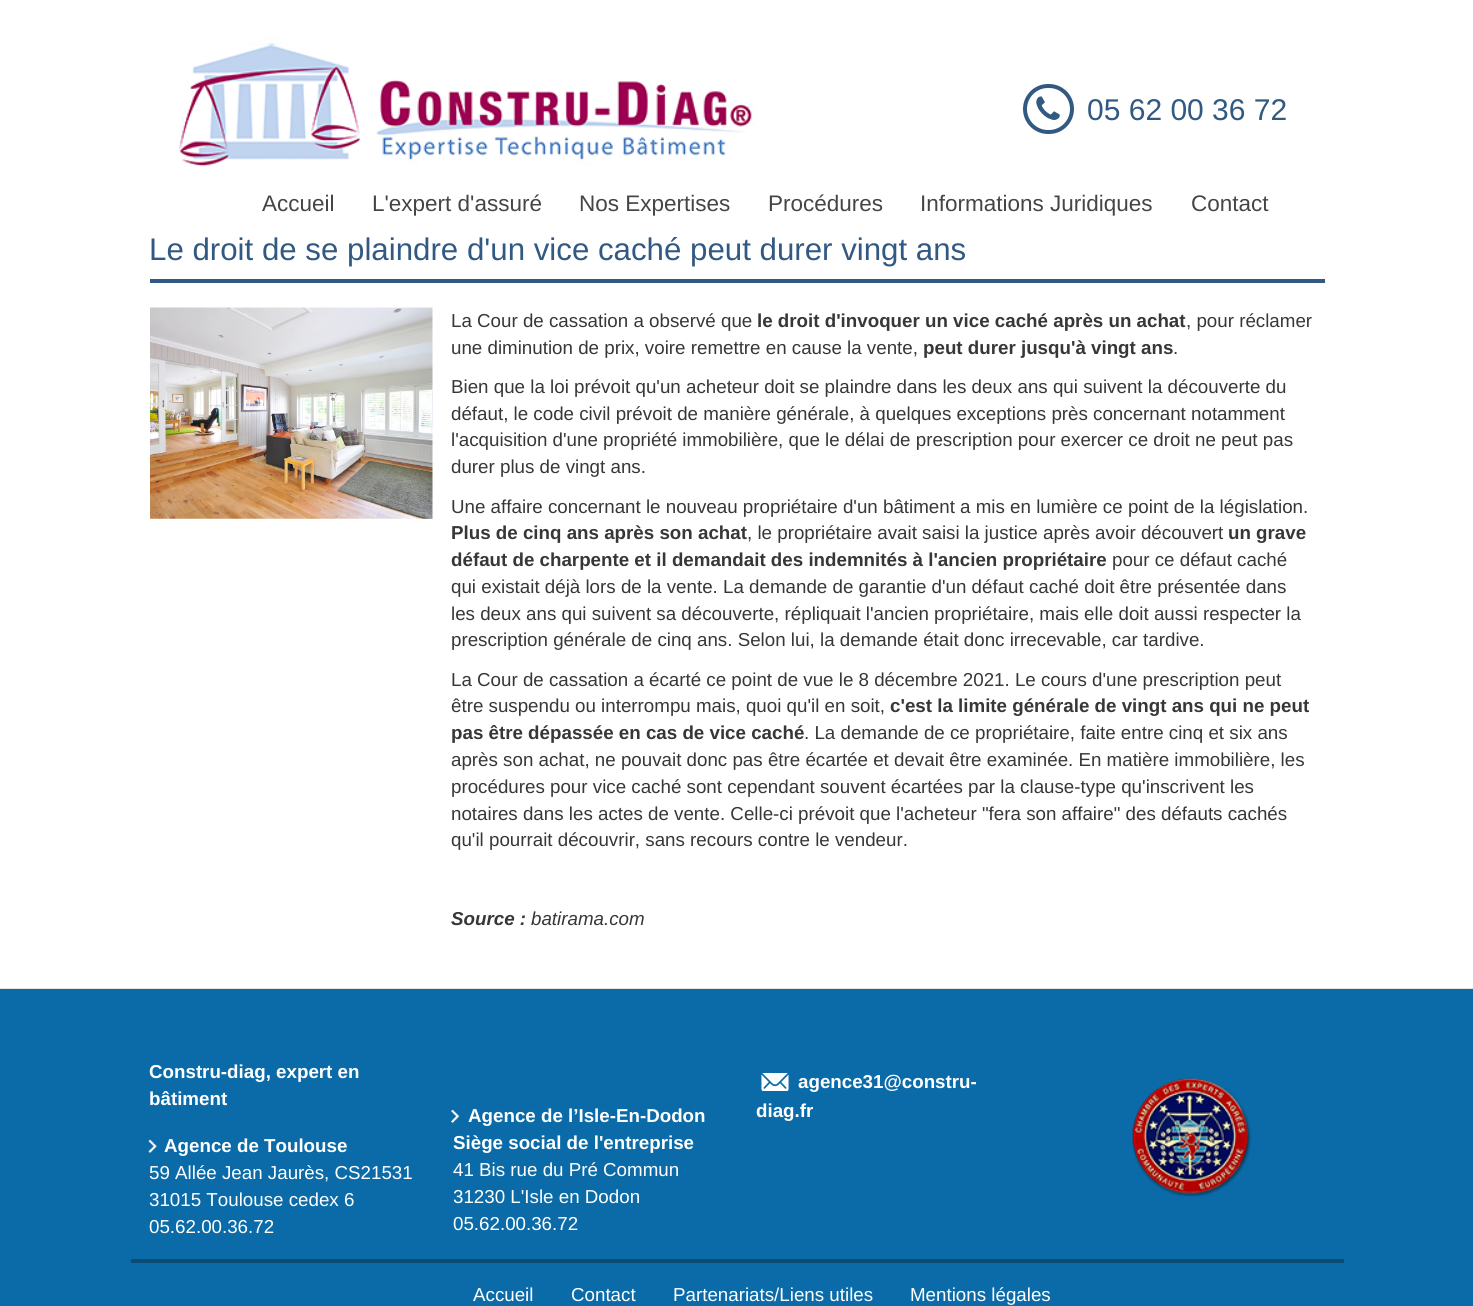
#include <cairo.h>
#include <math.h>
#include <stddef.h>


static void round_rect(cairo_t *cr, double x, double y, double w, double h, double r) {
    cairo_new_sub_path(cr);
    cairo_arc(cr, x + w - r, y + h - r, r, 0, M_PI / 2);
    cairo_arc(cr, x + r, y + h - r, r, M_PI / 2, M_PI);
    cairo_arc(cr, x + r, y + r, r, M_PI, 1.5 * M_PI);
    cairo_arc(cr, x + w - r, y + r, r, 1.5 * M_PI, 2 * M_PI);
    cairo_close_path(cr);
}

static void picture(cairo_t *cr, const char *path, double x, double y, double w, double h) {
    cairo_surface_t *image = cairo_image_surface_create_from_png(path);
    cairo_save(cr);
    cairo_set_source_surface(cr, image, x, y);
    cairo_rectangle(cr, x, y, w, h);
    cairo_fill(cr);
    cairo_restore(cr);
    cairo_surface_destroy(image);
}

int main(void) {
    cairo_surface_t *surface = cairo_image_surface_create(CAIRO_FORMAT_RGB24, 1473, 1306);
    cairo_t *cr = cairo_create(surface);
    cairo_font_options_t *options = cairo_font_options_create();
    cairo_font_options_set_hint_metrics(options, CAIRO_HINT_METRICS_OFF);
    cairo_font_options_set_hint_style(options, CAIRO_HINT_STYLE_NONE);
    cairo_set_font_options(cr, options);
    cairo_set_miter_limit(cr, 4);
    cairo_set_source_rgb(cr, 1, 1, 1);
    cairo_paint(cr);
    picture(cr, "img1.png", 178, 35, 578, 132);
    round_rect(cr, 1025, 86, 47, 46, 23);
    cairo_set_source_rgb(cr, 0.196, 0.349, 0.51);
    cairo_set_line_width(cr, 4);
    cairo_stroke(cr);
    picture(cr, "img2.png", 1036, 96, 24, 24);
    cairo_select_font_face(cr, "Liberation Sans", CAIRO_FONT_SLANT_NORMAL, CAIRO_FONT_WEIGHT_NORMAL);
    cairo_set_font_size(cr, 30);
    cairo_move_to(cr, 1087, 120);
    cairo_show_text(cr, "05 62 00 36 72");
    cairo_set_font_size(cr, 22.5);
    cairo_set_source_rgb(cr, 0.271, 0.271, 0.271);
    cairo_move_to(cr, 262, 211);
    cairo_show_text(cr, "Accueil");
    cairo_move_to(cr, 372, 211);
    cairo_show_text(cr, "L'expert d'assuré");
    cairo_move_to(cr, 579, 211);
    cairo_show_text(cr, "Nos Expertises");
    cairo_move_to(cr, 768, 211);
    cairo_show_text(cr, "Procédures");
    cairo_move_to(cr, 920, 211);
    cairo_show_text(cr, "Informations Juridiques");
    cairo_move_to(cr, 1191, 211);
    cairo_show_text(cr, "Contact");
    cairo_set_source_rgb(cr, 0.196, 0.349, 0.51);
    cairo_rectangle(cr, 150, 279, 1175, 4);
    cairo_fill(cr);
    cairo_set_font_size(cr, 31.25);
    cairo_move_to(cr, 149, 260);
    cairo_show_text(cr, "Le droit de se plaindre d'un vice caché peut durer vingt ans");
    picture(cr, "img3.png", 150, 307, 283, 212);
    cairo_set_font_size(cr, 18.75);
    cairo_set_source_rgb(cr, 0.216, 0.216, 0.216);
    cairo_move_to(cr, 451, 327);
    cairo_show_text(cr, "La Cour de cassation a observé que");
    cairo_select_font_face(cr, "Liberation Sans", CAIRO_FONT_SLANT_NORMAL, CAIRO_FONT_WEIGHT_BOLD);
    cairo_move_to(cr, 757, 327);
    cairo_show_text(cr, "le droit d'invoquer un vice caché après un achat");
    cairo_select_font_face(cr, "Liberation Sans", CAIRO_FONT_SLANT_NORMAL, CAIRO_FONT_WEIGHT_NORMAL);
    cairo_move_to(cr, 1186, 327);
    cairo_show_text(cr, ", pour réclamer");
    cairo_move_to(cr, 451, 354);
    cairo_show_text(cr, "une diminution de prix, voire remettre en cause la vente,");
    cairo_select_font_face(cr, "Liberation Sans", CAIRO_FONT_SLANT_NORMAL, CAIRO_FONT_WEIGHT_BOLD);
    cairo_move_to(cr, 923, 354);
    cairo_show_text(cr, "peut durer jusqu'à vingt ans");
    cairo_select_font_face(cr, "Liberation Sans", CAIRO_FONT_SLANT_NORMAL, CAIRO_FONT_WEIGHT_NORMAL);
    cairo_move_to(cr, 1173, 354);
    cairo_show_text(cr, ".");
    cairo_move_to(cr, 451, 393);
    cairo_show_text(cr, "Bien que la loi prévoit qu'un acheteur doit se plaindre dans les deux ans qui suivent la découverte du");
    cairo_move_to(cr, 451, 420);
    cairo_show_text(cr, "défaut, le code civil prévoit de manière générale, à quelques exceptions près concernant notamment");
    cairo_move_to(cr, 451, 446);
    cairo_show_text(cr, "l'acquisition d'une propriété immobilière, que le délai de prescription pour exercer ce droit ne peut pas");
    cairo_move_to(cr, 451, 473);
    cairo_show_text(cr, "durer plus de vingt ans.");
    cairo_move_to(cr, 451, 513);
    cairo_show_text(cr, "Une affaire concernant le nouveau propriétaire d'un bâtiment a mis en lumière ce point de la législation.");
    cairo_select_font_face(cr, "Liberation Sans", CAIRO_FONT_SLANT_NORMAL, CAIRO_FONT_WEIGHT_BOLD);
    cairo_move_to(cr, 451, 539);
    cairo_show_text(cr, "Plus de cinq ans après son achat");
    cairo_select_font_face(cr, "Liberation Sans", CAIRO_FONT_SLANT_NORMAL, CAIRO_FONT_WEIGHT_NORMAL);
    cairo_move_to(cr, 747, 539);
    cairo_show_text(cr, ", le propriétaire avait saisi la justice après avoir découvert");
    cairo_select_font_face(cr, "Liberation Sans", CAIRO_FONT_SLANT_NORMAL, CAIRO_FONT_WEIGHT_BOLD);
    cairo_move_to(cr, 1228, 539);
    cairo_show_text(cr, "un grave");
    cairo_move_to(cr, 451, 566);
    cairo_show_text(cr, "défaut de charpente et il demandait des indemnités à l'ancien propriétaire");
    cairo_select_font_face(cr, "Liberation Sans", CAIRO_FONT_SLANT_NORMAL, CAIRO_FONT_WEIGHT_NORMAL);
    cairo_move_to(cr, 1112, 566);
    cairo_show_text(cr, "pour ce défaut caché");
    cairo_move_to(cr, 451, 593);
    cairo_show_text(cr, "qui existait déjà lors de la vente. La demande de garantie d'un défaut caché doit être présentée dans");
    cairo_move_to(cr, 451, 620);
    cairo_show_text(cr, "les deux ans qui suivent sa découverte, répliquait l'ancien propriétaire, mais elle doit aussi respecter la");
    cairo_move_to(cr, 451, 646);
    cairo_show_text(cr, "prescription générale de cinq ans. Selon lui, la demande était donc irrecevable, car tardive.");
    cairo_move_to(cr, 451, 686);
    cairo_show_text(cr, "La Cour de cassation a écarté ce point de vue le 8 décembre 2021. Le cours d'une prescription peut");
    cairo_move_to(cr, 451, 712);
    cairo_show_text(cr, "être suspendu ou interrompu mais, quoi qu'il en soit,");
    cairo_select_font_face(cr, "Liberation Sans", CAIRO_FONT_SLANT_NORMAL, CAIRO_FONT_WEIGHT_BOLD);
    cairo_move_to(cr, 890, 712);
    cairo_show_text(cr, "c'est la limite générale de vingt ans qui ne peut");
    cairo_move_to(cr, 451, 739);
    cairo_show_text(cr, "pas être dépassée en cas de vice caché");
    cairo_select_font_face(cr, "Liberation Sans", CAIRO_FONT_SLANT_NORMAL, CAIRO_FONT_WEIGHT_NORMAL);
    cairo_move_to(cr, 804, 739);
    cairo_show_text(cr, ". La demande de ce propriétaire, faite entre cinq et six ans");
    cairo_move_to(cr, 451, 766);
    cairo_show_text(cr, "après son achat, ne pouvait donc pas être écartée et devait être examinée. En matière immobilière, les");
    cairo_move_to(cr, 451, 793);
    cairo_show_text(cr, "procédures pour vice caché sont cependant souvent écartées par la clause-type qu'inscrivent les");
    cairo_move_to(cr, 451, 820);
    cairo_show_text(cr, "notaires dans les actes de vente. Celle-ci prévoit que l'acheteur \"fera son affaire\" des défauts cachés");
    cairo_move_to(cr, 451, 846);
    cairo_show_text(cr, "qu'il pourrait découvrir, sans recours contre le vendeur.");
    cairo_select_font_face(cr, "Liberation Sans", CAIRO_FONT_SLANT_ITALIC, CAIRO_FONT_WEIGHT_BOLD);
    cairo_move_to(cr, 451, 925);
    cairo_show_text(cr, "Source :");
    cairo_select_font_face(cr, "Liberation Sans", CAIRO_FONT_SLANT_ITALIC, CAIRO_FONT_WEIGHT_NORMAL);
    cairo_move_to(cr, 531, 925);
    cairo_show_text(cr, "batirama.com");
    cairo_set_source_rgb(cr, 0.043, 0.42, 0.659);
    cairo_rectangle(cr, 0, 989, 1473, 317);
    cairo_fill(cr);
    cairo_set_source_rgb(cr, 0.898, 0.898, 0.898);
    cairo_rectangle(cr, 0, 988, 1473, 1);
    cairo_fill(cr);
    cairo_set_source_rgb(cr, 0.043, 0.298, 0.459);
    cairo_rectangle(cr, 131, 1259, 1213, 4);
    cairo_fill(cr);
    cairo_select_font_face(cr, "Liberation Sans", CAIRO_FONT_SLANT_NORMAL, CAIRO_FONT_WEIGHT_BOLD);
    cairo_set_source_rgb(cr, 1, 1, 1);
    cairo_move_to(cr, 149, 1078);
    cairo_show_text(cr, "Constru-diag, expert en");
    cairo_move_to(cr, 149, 1105);
    cairo_show_text(cr, "bâtiment");
    picture(cr, "img4.png", 148, 1139, 9, 15);
    cairo_move_to(cr, 164, 1152);
    cairo_show_text(cr, "Agence de Toulouse");
    cairo_select_font_face(cr, "Liberation Sans", CAIRO_FONT_SLANT_NORMAL, CAIRO_FONT_WEIGHT_NORMAL);
    cairo_move_to(cr, 149, 1179);
    cairo_show_text(cr, "59 Allée Jean Jaurès, CS21531");
    cairo_move_to(cr, 149, 1206);
    cairo_show_text(cr, "31015 Toulouse cedex 6");
    cairo_move_to(cr, 149, 1233);
    cairo_show_text(cr, "05.62.00.36.72");
    picture(cr, "img5.png", 451, 1109, 9, 15);
    cairo_select_font_face(cr, "Liberation Sans", CAIRO_FONT_SLANT_NORMAL, CAIRO_FONT_WEIGHT_BOLD);
    cairo_move_to(cr, 468, 1122);
    cairo_show_text(cr, "Agence de l’Isle-En-Dodon");
    cairo_move_to(cr, 453, 1149);
    cairo_show_text(cr, "Siège social de l'entreprise");
    cairo_select_font_face(cr, "Liberation Sans", CAIRO_FONT_SLANT_NORMAL, CAIRO_FONT_WEIGHT_NORMAL);
    cairo_move_to(cr, 453, 1176);
    cairo_show_text(cr, "41 Bis rue du Pré Commun");
    cairo_move_to(cr, 453, 1203);
    cairo_show_text(cr, "31230 L'Isle en Dodon");
    cairo_move_to(cr, 453, 1230);
    cairo_show_text(cr, "05.62.00.36.72");
    picture(cr, "img6.png", 761, 1073, 28, 18);
    cairo_select_font_face(cr, "Liberation Sans", CAIRO_FONT_SLANT_NORMAL, CAIRO_FONT_WEIGHT_BOLD);
    cairo_move_to(cr, 798, 1088);
    cairo_show_text(cr, "agence31@constru-");
    cairo_move_to(cr, 756, 1117);
    cairo_show_text(cr, "diag.fr");
    picture(cr, "img7.png", 1132, 1077, 120, 120);
    cairo_select_font_face(cr, "Liberation Sans", CAIRO_FONT_SLANT_NORMAL, CAIRO_FONT_WEIGHT_NORMAL);
    cairo_move_to(cr, 473, 1301);
    cairo_show_text(cr, "Accueil");
    cairo_move_to(cr, 571, 1301);
    cairo_show_text(cr, "Contact");
    cairo_move_to(cr, 673, 1301);
    cairo_show_text(cr, "Partenariats/Liens utiles");
    cairo_move_to(cr, 910, 1301);
    cairo_show_text(cr, "Mentions légales");
    cairo_surface_write_to_png(surface, "page.png");
    cairo_font_options_destroy(options);
    cairo_destroy(cr);
    cairo_surface_destroy(surface);
    return 0;
}
